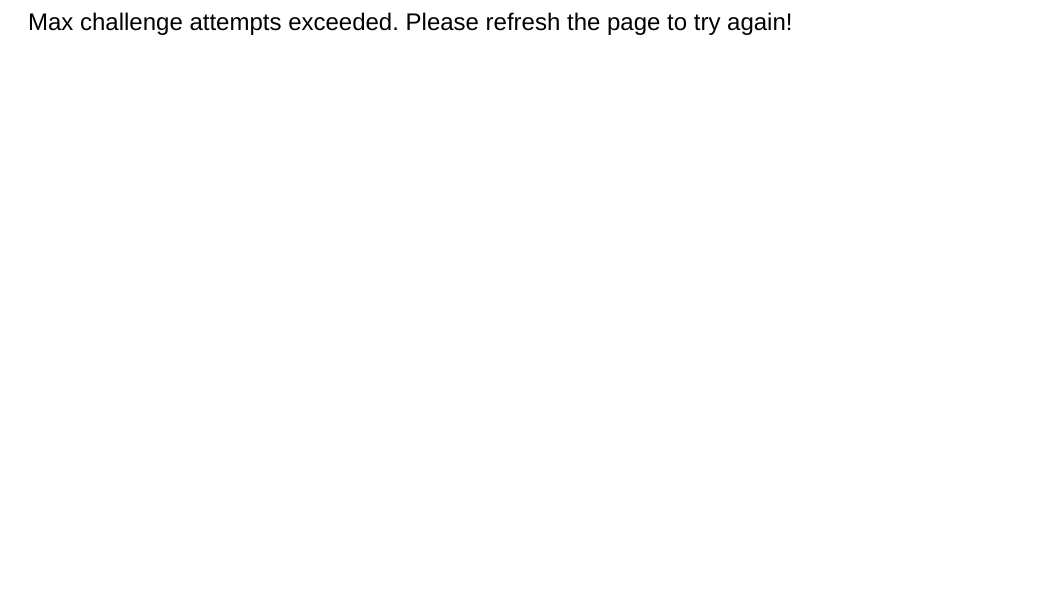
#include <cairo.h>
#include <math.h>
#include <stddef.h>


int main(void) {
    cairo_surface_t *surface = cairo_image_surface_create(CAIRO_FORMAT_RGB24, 1055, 615);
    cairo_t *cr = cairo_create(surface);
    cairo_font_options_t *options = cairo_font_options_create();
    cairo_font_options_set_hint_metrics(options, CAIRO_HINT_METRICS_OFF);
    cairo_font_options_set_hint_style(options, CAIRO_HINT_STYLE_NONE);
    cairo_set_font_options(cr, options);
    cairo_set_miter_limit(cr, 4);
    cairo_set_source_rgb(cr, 1, 1, 1);
    cairo_paint(cr);
    cairo_select_font_face(cr, "Liberation Sans", CAIRO_FONT_SLANT_NORMAL, CAIRO_FONT_WEIGHT_NORMAL);
    cairo_set_font_size(cr, 24);
    cairo_set_source_rgb(cr, 0, 0, 0);
    cairo_move_to(cr, 28, 30);
    cairo_show_text(cr, "Max challenge attempts exceeded. Please refresh the page to try again!");
    cairo_surface_write_to_png(surface, "page.png");
    cairo_font_options_destroy(options);
    cairo_destroy(cr);
    cairo_surface_destroy(surface);
    return 0;
}
